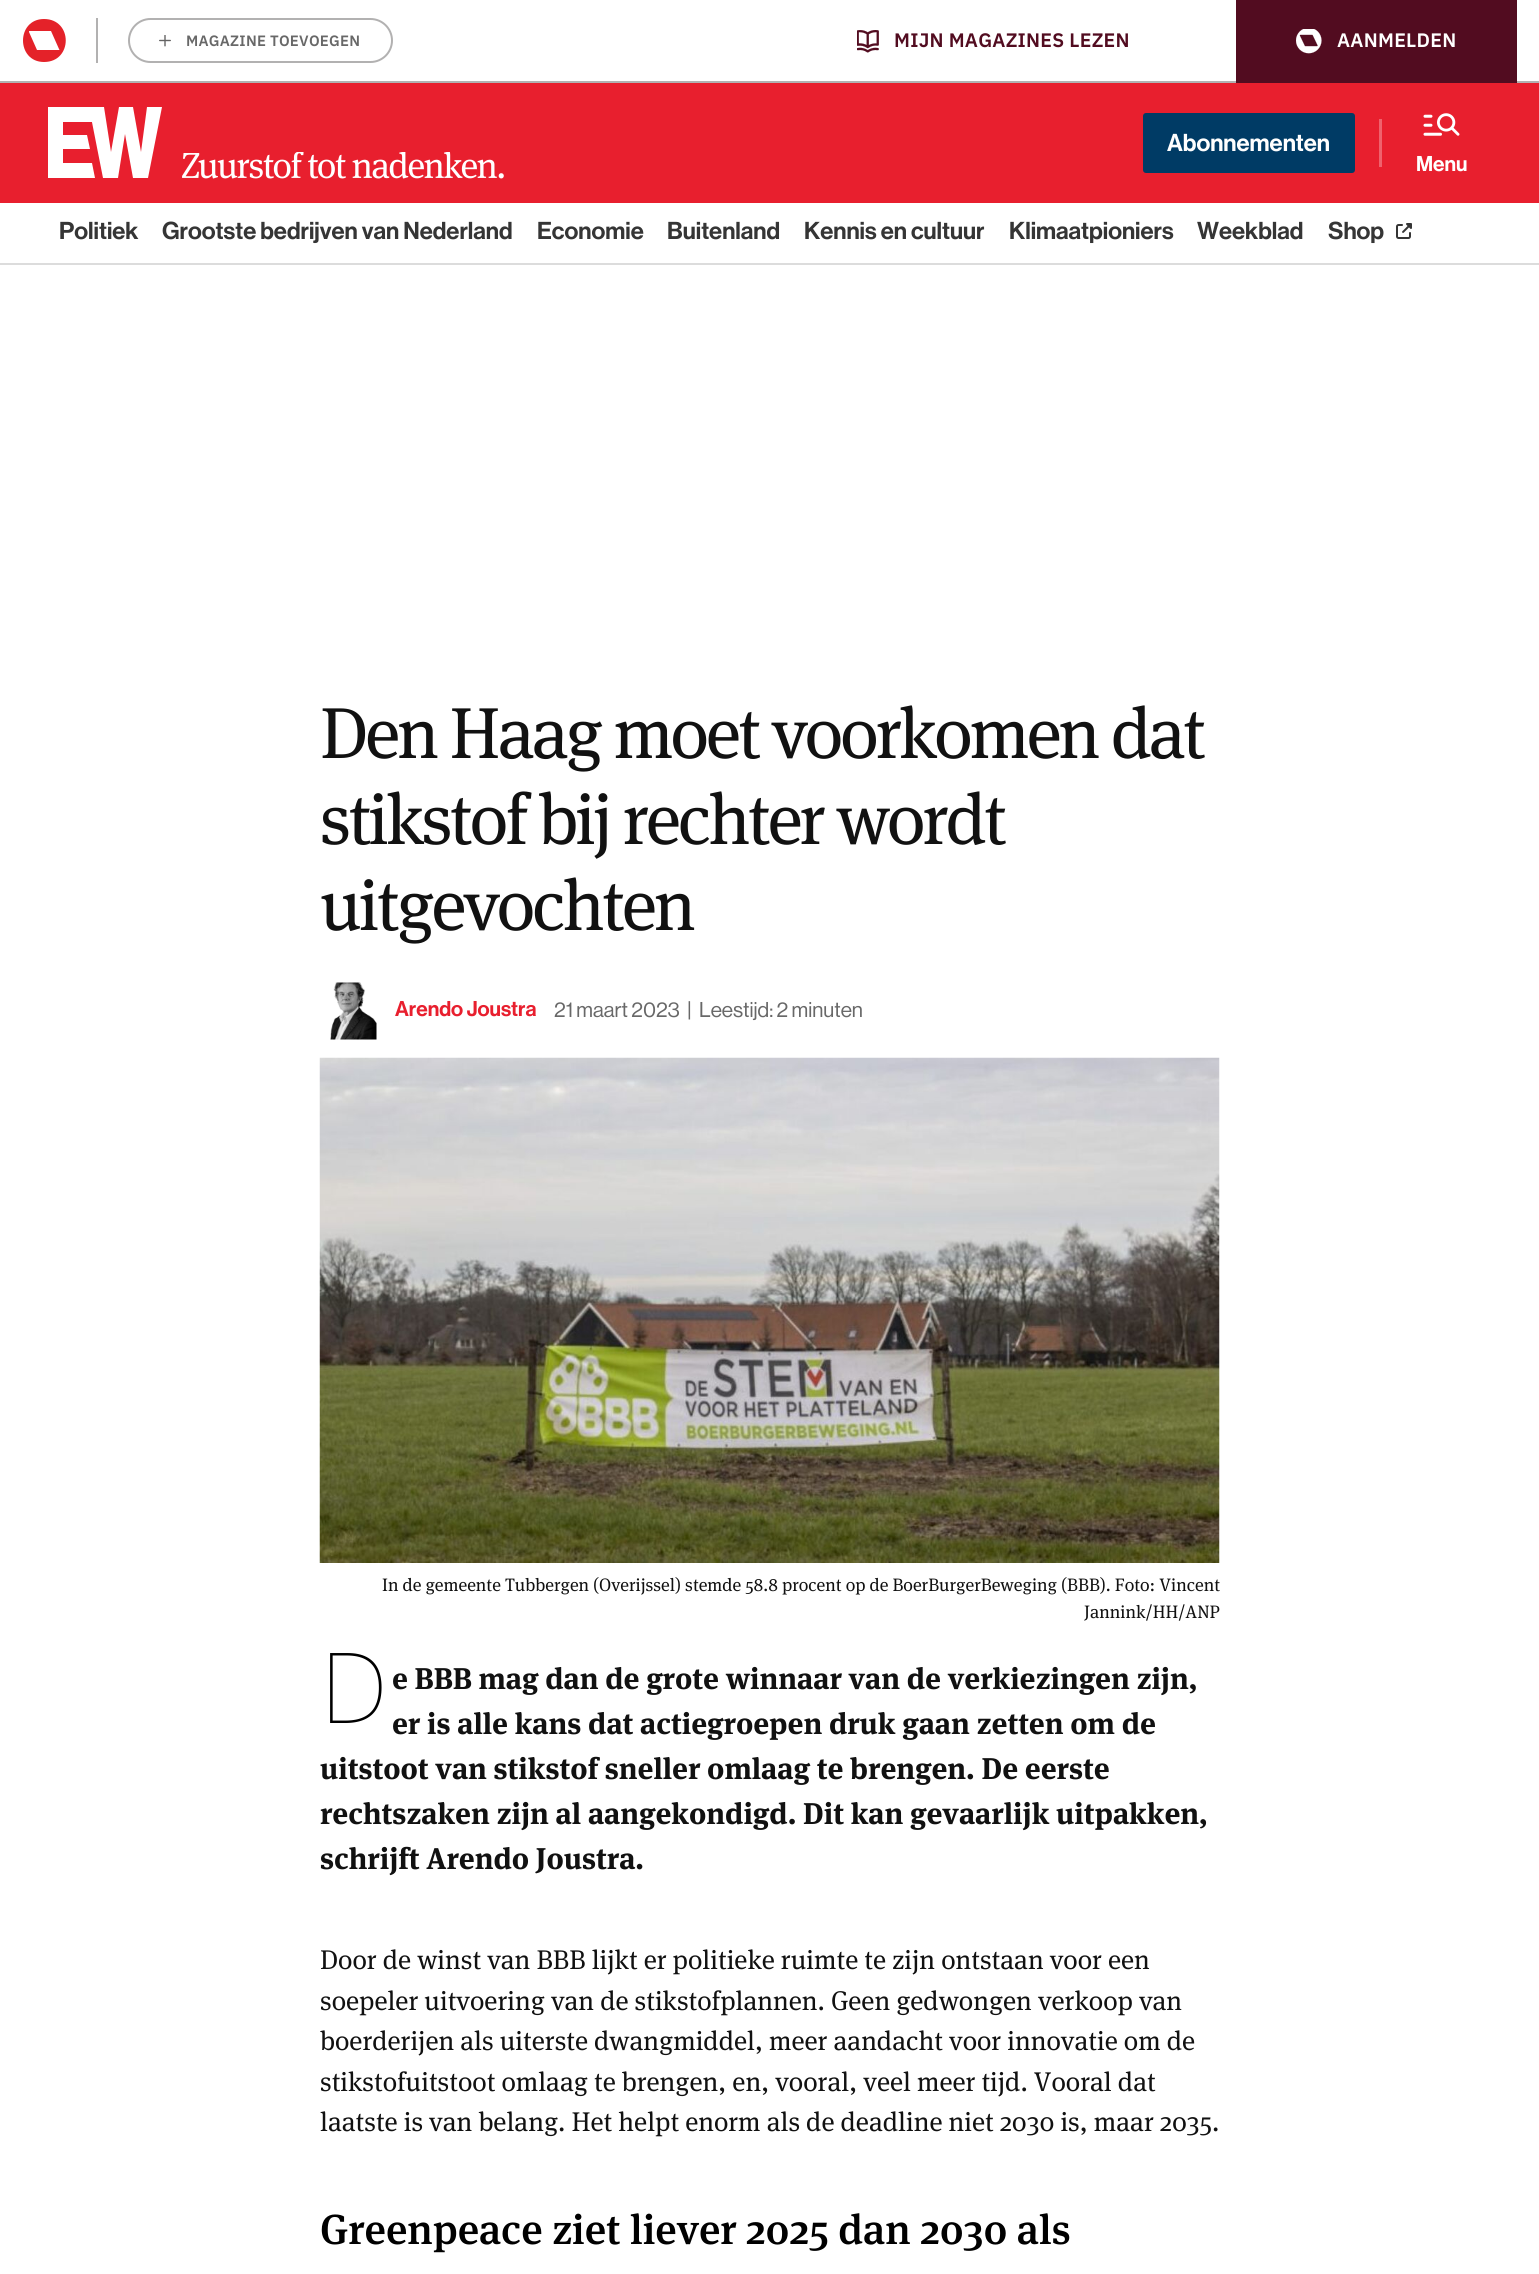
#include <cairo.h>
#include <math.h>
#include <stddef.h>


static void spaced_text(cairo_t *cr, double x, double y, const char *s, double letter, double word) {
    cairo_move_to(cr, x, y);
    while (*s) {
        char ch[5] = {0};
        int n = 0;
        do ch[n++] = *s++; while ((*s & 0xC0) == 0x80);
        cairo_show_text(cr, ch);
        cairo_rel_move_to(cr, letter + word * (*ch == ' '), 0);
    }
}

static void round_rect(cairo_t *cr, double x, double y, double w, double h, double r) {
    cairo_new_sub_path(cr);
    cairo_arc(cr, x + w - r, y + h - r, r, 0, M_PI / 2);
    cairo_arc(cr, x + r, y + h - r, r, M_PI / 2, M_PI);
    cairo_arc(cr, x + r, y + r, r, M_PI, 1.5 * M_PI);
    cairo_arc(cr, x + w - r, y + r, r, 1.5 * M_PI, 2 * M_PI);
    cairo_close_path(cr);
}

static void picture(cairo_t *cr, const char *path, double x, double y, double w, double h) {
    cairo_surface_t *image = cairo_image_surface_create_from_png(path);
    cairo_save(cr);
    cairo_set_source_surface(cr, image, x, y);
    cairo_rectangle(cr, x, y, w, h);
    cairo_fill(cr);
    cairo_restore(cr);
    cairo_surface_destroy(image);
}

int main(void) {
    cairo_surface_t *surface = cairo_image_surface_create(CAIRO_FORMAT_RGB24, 1539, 2274);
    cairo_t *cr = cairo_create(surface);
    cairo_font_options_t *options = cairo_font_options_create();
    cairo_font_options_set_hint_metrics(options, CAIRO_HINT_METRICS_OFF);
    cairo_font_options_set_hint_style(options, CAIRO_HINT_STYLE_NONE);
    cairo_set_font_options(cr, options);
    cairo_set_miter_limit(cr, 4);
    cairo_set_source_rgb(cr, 1, 1, 1);
    cairo_paint(cr);
    cairo_set_source_rgb(cr, 0.698, 0.698, 0.698);
    cairo_rectangle(cr, 0, 81, 1539, 2);
    cairo_fill(cr);
    cairo_set_source_rgb(cr, 0.698, 0.694, 0.694);
    cairo_rectangle(cr, 96, 18, 2, 45);
    cairo_fill(cr);
    cairo_set_source_rgb(cr, 0.894, 0.133, 0.161);
    cairo_set_fill_rule(cr, CAIRO_FILL_RULE_EVEN_ODD);
    cairo_new_path(cr);
    cairo_move_to(cr, 59, 50);
    cairo_line_to(cr, 38, 50);
    cairo_line_to(cr, 37, 50);
    cairo_line_to(cr, 29, 32);
    cairo_curve_to(cr, 29, 31, 29, 31, 30, 31);
    cairo_line_to(cr, 50, 31);
    cairo_line_to(cr, 51, 31);
    cairo_line_to(cr, 59, 49);
    cairo_curve_to(cr, 60, 49, 59, 50, 59, 50);
    cairo_close_path(cr);
    cairo_move_to(cr, 44, 19);
    cairo_curve_to(cr, 16, 19, 16, 62, 44, 62);
    cairo_curve_to(cr, 73, 62, 73, 19, 44, 19);
    cairo_close_path(cr);
    cairo_fill(cr);
    round_rect(cr, 129, 19, 263, 43, 21.5);
    cairo_set_source_rgb(cr, 0.698, 0.694, 0.694);
    cairo_stroke(cr);
    picture(cr, "img1.png", 159, 35, 12, 12);
    cairo_select_font_face(cr, "IBM Plex Sans SemiBold", CAIRO_FONT_SLANT_NORMAL, CAIRO_FONT_WEIGHT_NORMAL);
    cairo_set_font_size(cr, 15);
    cairo_set_source_rgb(cr, 0.408, 0.408, 0.408);
    spaced_text(cr, 186, 46, "MAGAZINE TOEVOEGEN", 0.25, 0);
    picture(cr, "img2.png", 857, 30, 22, 23);
    cairo_set_font_size(cr, 19.5);
    cairo_set_source_rgb(cr, 0.322, 0.047, 0.125);
    spaced_text(cr, 894, 47, "MIJN MAGAZINES LEZEN", 0.25, 0);
    cairo_rectangle(cr, 1236, 0, 281, 83);
    cairo_fill(cr);
    picture(cr, "img3.png", 1296, 29, 26, 25);
    cairo_set_source_rgb(cr, 1, 1, 1);
    spaced_text(cr, 1337, 47, "AANMELDEN", 0.25, 0);
    cairo_set_source_rgb(cr, 0.91, 0.122, 0.18);
    cairo_rectangle(cr, 0, 83, 1539, 120);
    cairo_fill(cr);
    cairo_set_source_rgb(cr, 1, 1, 1);
    cairo_set_fill_rule(cr, CAIRO_FILL_RULE_WINDING);
    cairo_new_path(cr);
    cairo_move_to(cr, 90, 149);
    cairo_line_to(cr, 87, 135);
    cairo_line_to(cr, 63, 135);
    cairo_line_to(cr, 63, 122);
    cairo_line_to(cr, 92, 122);
    cairo_line_to(cr, 92, 107);
    cairo_line_to(cr, 48, 107);
    cairo_line_to(cr, 48, 178);
    cairo_line_to(cr, 95, 178);
    cairo_line_to(cr, 92, 163);
    cairo_line_to(cr, 63, 163);
    cairo_line_to(cr, 63, 149);
    cairo_close_path(cr);
    cairo_move_to(cr, 147, 107);
    cairo_line_to(cr, 141, 152);
    cairo_line_to(cr, 133, 107);
    cairo_line_to(cr, 119, 107);
    cairo_line_to(cr, 111, 152);
    cairo_line_to(cr, 104, 107);
    cairo_line_to(cr, 89, 107);
    cairo_line_to(cr, 103, 178);
    cairo_line_to(cr, 118, 178);
    cairo_line_to(cr, 125, 134);
    cairo_line_to(cr, 133, 178);
    cairo_line_to(cr, 148, 178);
    cairo_line_to(cr, 162, 107);
    cairo_close_path(cr);
    cairo_fill(cr);
    picture(cr, "img4.png", 182, 152, 322, 27);
    cairo_set_source_rgb(cr, 0, 0.231, 0.396);
    round_rect(cr, 1143, 113, 212, 60, 3);
    cairo_fill(cr);
    cairo_select_font_face(cr, "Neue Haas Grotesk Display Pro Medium", CAIRO_FONT_SLANT_NORMAL, CAIRO_FONT_WEIGHT_NORMAL);
    cairo_set_font_size(cr, 24);
    cairo_set_source_rgb(cr, 1, 1, 1);
    cairo_move_to(cr, 1167, 151);
    cairo_show_text(cr, "Abonnementen");
    cairo_set_source_rgb(cr, 0.937, 0.384, 0.427);
    cairo_rectangle(cr, 1379, 119, 3, 48);
    cairo_fill(cr);
    picture(cr, "img5.png", 1423, 113, 37, 23);
    cairo_set_font_size(cr, 21);
    cairo_set_source_rgb(cr, 1, 1, 1);
    cairo_move_to(cr, 1416, 171);
    cairo_show_text(cr, "Menu");
    cairo_set_source_rgb(cr, 0.863, 0.863, 0.863);
    cairo_rectangle(cr, 0, 263, 1539, 2);
    cairo_fill(cr);
    cairo_set_font_size(cr, 24);
    cairo_set_source_rgb(cr, 0.208, 0.208, 0.208);
    cairo_move_to(cr, 59, 239);
    cairo_show_text(cr, "Politiek");
    cairo_move_to(cr, 162, 239);
    cairo_show_text(cr, "Grootste bedrijven van Nederland");
    cairo_move_to(cr, 537, 239);
    cairo_show_text(cr, "Economie");
    cairo_move_to(cr, 667, 239);
    cairo_show_text(cr, "Buitenland");
    cairo_move_to(cr, 804, 239);
    cairo_show_text(cr, "Kennis en cultuur");
    cairo_move_to(cr, 1009, 239);
    cairo_show_text(cr, "Klimaatpioniers");
    cairo_move_to(cr, 1197, 239);
    cairo_show_text(cr, "Weekblad");
    cairo_move_to(cr, 1328, 239);
    cairo_show_text(cr, "Shop");
    picture(cr, "img6.png", 1396, 223, 16, 16);
    cairo_select_font_face(cr, "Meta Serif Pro", CAIRO_FONT_SLANT_NORMAL, CAIRO_FONT_WEIGHT_NORMAL);
    cairo_set_font_size(cr, 72);
    cairo_set_source_rgb(cr, 0.067, 0.067, 0.067);
    spaced_text(cr, 320, 758, "Den Haag moet voorkomen dat", -2.9, 0);
    spaced_text(cr, 320, 844, "stikstof bij rechter wordt", -2.9, 0);
    spaced_text(cr, 320, 930, "uitgevochten", -2.9, 0);
    picture(cr, "img7.png", 330, 982, 47, 58);
    cairo_select_font_face(cr, "Neue Haas Grotesk Display Pro Medium", CAIRO_FONT_SLANT_NORMAL, CAIRO_FONT_WEIGHT_NORMAL);
    cairo_set_font_size(cr, 21);
    cairo_set_source_rgb(cr, 0.91, 0.122, 0.18);
    cairo_move_to(cr, 395, 1016);
    cairo_show_text(cr, "Arendo Joustra");
    cairo_select_font_face(cr, "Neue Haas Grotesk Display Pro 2 Medium", CAIRO_FONT_SLANT_NORMAL, CAIRO_FONT_WEIGHT_NORMAL);
    cairo_set_source_rgb(cr, 0.408, 0.408, 0.408);
    cairo_move_to(cr, 554, 1017);
    cairo_show_text(cr, "21 maart 2023");
    cairo_move_to(cr, 687, 1017);
    cairo_show_text(cr, "|");
    cairo_move_to(cr, 699, 1017);
    cairo_show_text(cr, "Leestijd: 2 minuten");
    picture(cr, "img8.png", 319, 1057, 901, 506);
    cairo_select_font_face(cr, "Meta Serif Pro", CAIRO_FONT_SLANT_NORMAL, CAIRO_FONT_WEIGHT_NORMAL);
    cairo_set_font_size(cr, 18);
    cairo_set_source_rgb(cr, 0.067, 0.067, 0.067);
    cairo_move_to(cr, 382, 1591);
    cairo_show_text(cr, "In de gemeente Tubbergen (Overijssel) stemde 58.8 procent op de BoerBurgerBeweging (BBB). Foto: Vincent");
    cairo_move_to(cr, 1084, 1618);
    cairo_show_text(cr, "Jannink/HH/ANP");
    cairo_select_font_face(cr, "Noto Sans Thin", CAIRO_FONT_SLANT_NORMAL, CAIRO_FONT_WEIGHT_NORMAL);
    cairo_set_font_size(cr, 98);
    cairo_set_source_rgb(cr, 0, 0, 0);
    cairo_move_to(cr, 320, 1723);
    cairo_show_text(cr, "D");
    cairo_select_font_face(cr, "Meta Serif Pro", CAIRO_FONT_SLANT_NORMAL, CAIRO_FONT_WEIGHT_BOLD);
    cairo_set_font_size(cr, 30);
    cairo_set_source_rgb(cr, 0.067, 0.067, 0.067);
    cairo_move_to(cr, 392, 1689);
    cairo_show_text(cr, "e BBB mag dan de grote winnaar van de verkiezingen zijn,");
    cairo_move_to(cr, 392, 1734);
    cairo_show_text(cr, "er is alle kans dat actiegroepen druk gaan zetten om de");
    cairo_move_to(cr, 320, 1779);
    cairo_show_text(cr, "uitstoot van stikstof sneller omlaag te brengen. De eerste");
    cairo_move_to(cr, 320, 1824);
    cairo_show_text(cr, "rechtszaken zijn al aangekondigd. Dit kan gevaarlijk uitpakken,");
    cairo_move_to(cr, 320, 1869);
    cairo_show_text(cr, "schrijft Arendo Joustra.");
    cairo_select_font_face(cr, "Meta Serif Pro", CAIRO_FONT_SLANT_NORMAL, CAIRO_FONT_WEIGHT_NORMAL);
    cairo_set_font_size(cr, 27);
    cairo_move_to(cr, 320, 1969);
    cairo_show_text(cr, "Door de winst van BBB lijkt er politieke ruimte te zijn ontstaan voor een");
    cairo_move_to(cr, 320, 2010);
    cairo_show_text(cr, "soepeler uitvoering van de stikstofplannen. Geen gedwongen verkoop van");
    cairo_move_to(cr, 320, 2050);
    cairo_show_text(cr, "boerderijen als uiterste dwangmiddel, meer aandacht voor innovatie om de");
    cairo_move_to(cr, 320, 2091);
    cairo_show_text(cr, "stikstofuitstoot omlaag te brengen, en, vooral, veel meer tijd. Vooral dat");
    cairo_move_to(cr, 320, 2131);
    cairo_show_text(cr, "laatste is van belang. Het helpt enorm als de deadline niet 2030 is, maar 2035.");
    cairo_select_font_face(cr, "Meta Serif Pro Medium", CAIRO_FONT_SLANT_NORMAL, CAIRO_FONT_WEIGHT_NORMAL);
    cairo_set_font_size(cr, 42);
    cairo_set_source_rgb(cr, 0, 0, 0);
    cairo_move_to(cr, 320, 2244);
    cairo_show_text(cr, "Greenpeace ziet liever 2025 dan 2030 als");
    cairo_surface_write_to_png(surface, "page.png");
    cairo_font_options_destroy(options);
    cairo_destroy(cr);
    cairo_surface_destroy(surface);
    return 0;
}
